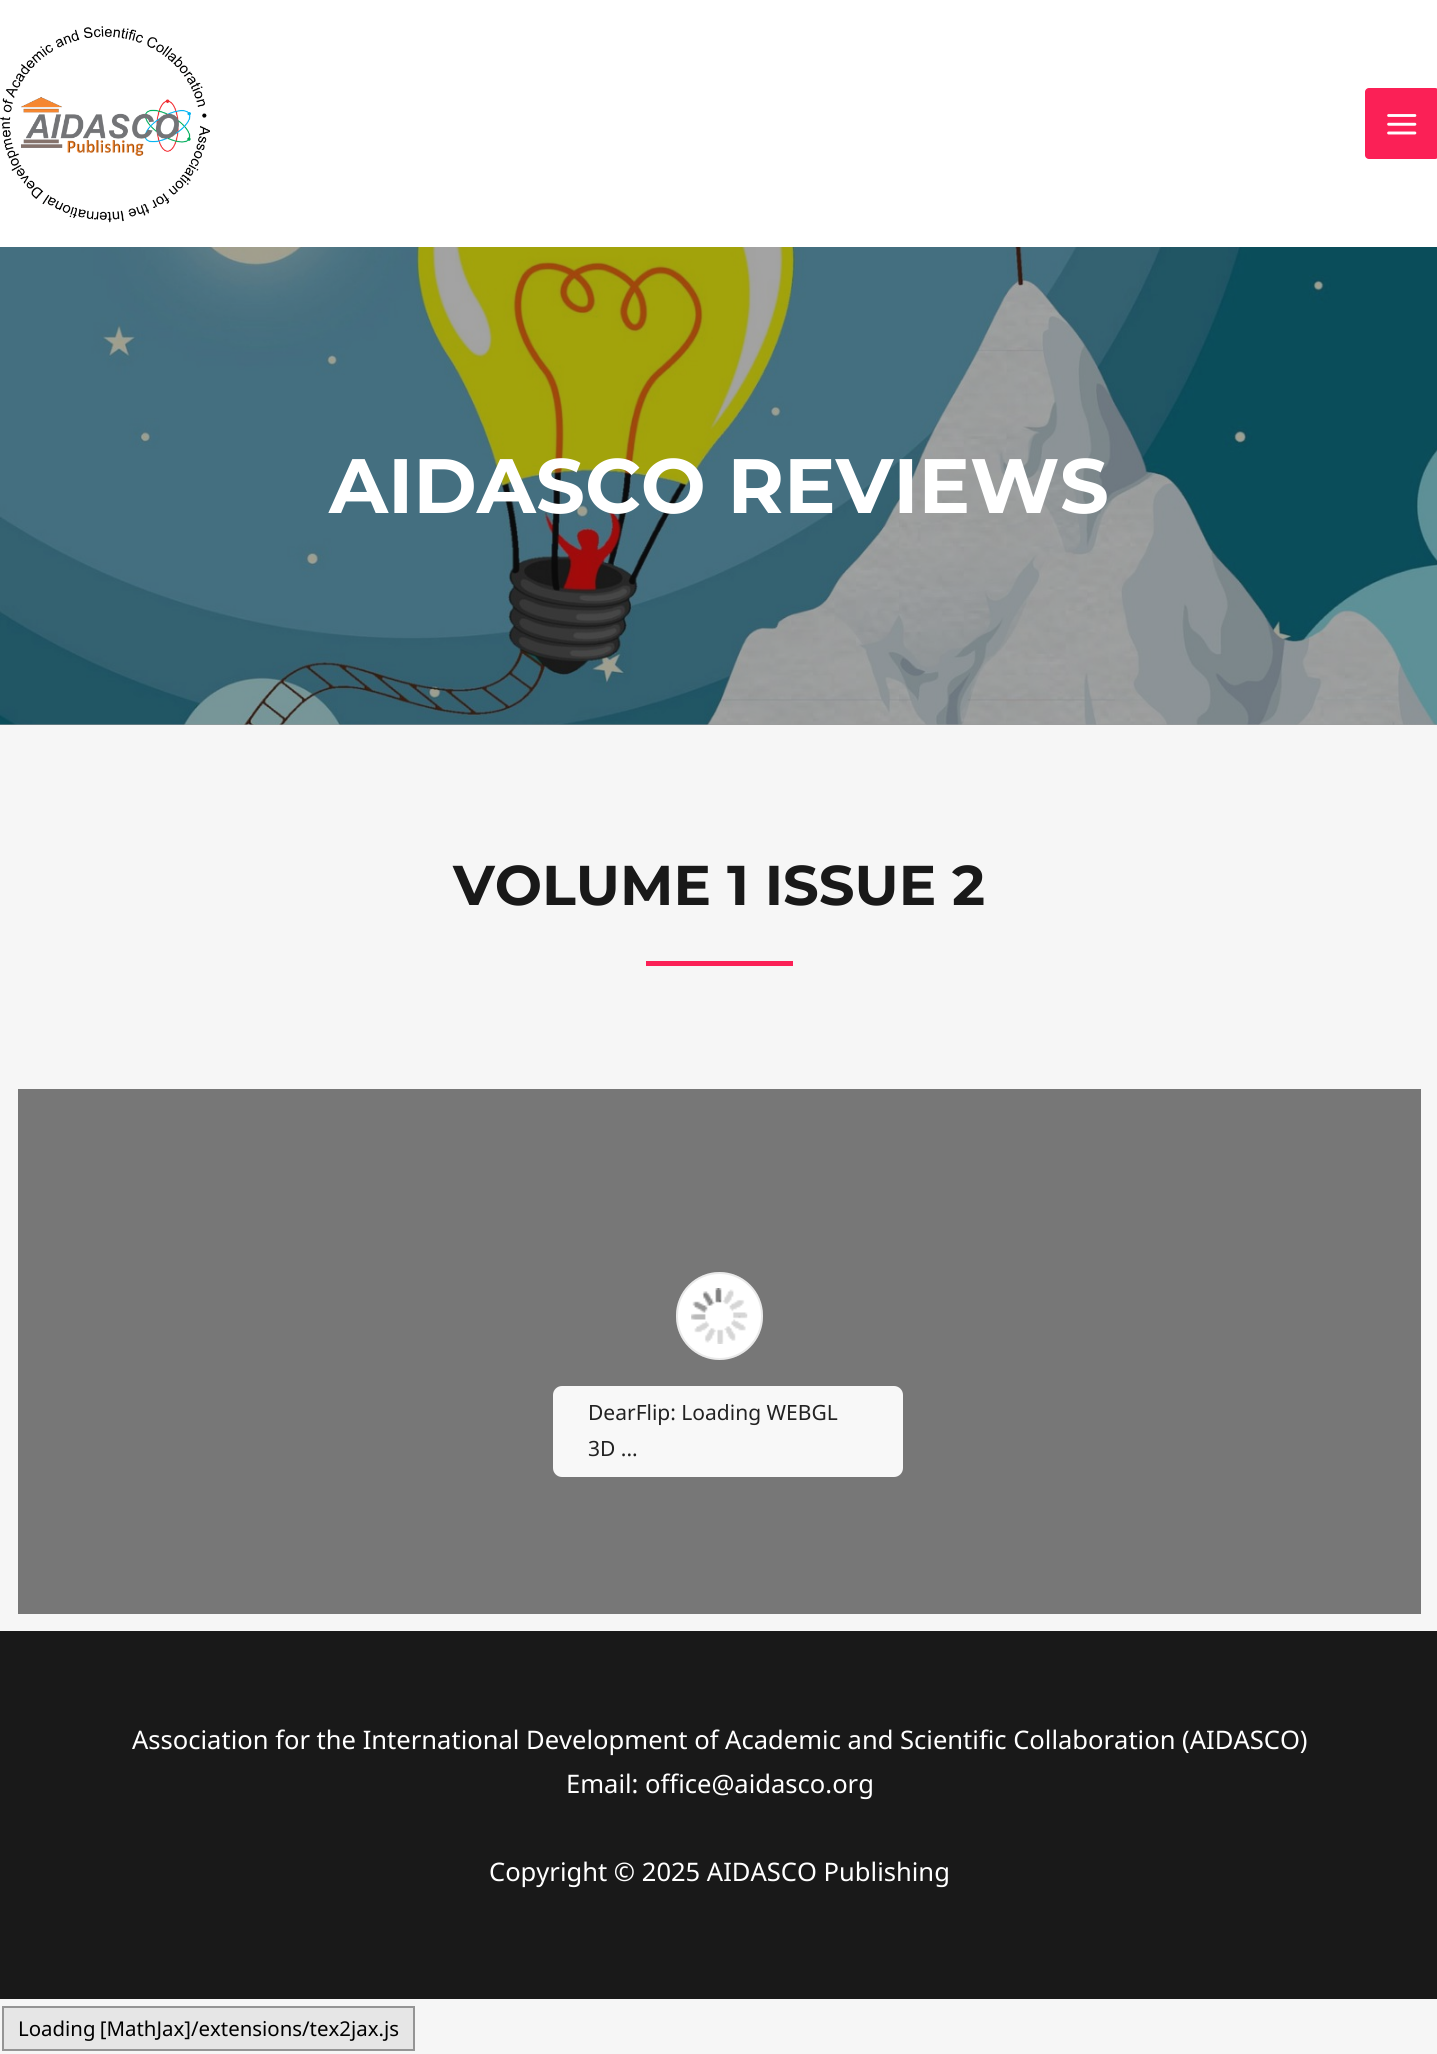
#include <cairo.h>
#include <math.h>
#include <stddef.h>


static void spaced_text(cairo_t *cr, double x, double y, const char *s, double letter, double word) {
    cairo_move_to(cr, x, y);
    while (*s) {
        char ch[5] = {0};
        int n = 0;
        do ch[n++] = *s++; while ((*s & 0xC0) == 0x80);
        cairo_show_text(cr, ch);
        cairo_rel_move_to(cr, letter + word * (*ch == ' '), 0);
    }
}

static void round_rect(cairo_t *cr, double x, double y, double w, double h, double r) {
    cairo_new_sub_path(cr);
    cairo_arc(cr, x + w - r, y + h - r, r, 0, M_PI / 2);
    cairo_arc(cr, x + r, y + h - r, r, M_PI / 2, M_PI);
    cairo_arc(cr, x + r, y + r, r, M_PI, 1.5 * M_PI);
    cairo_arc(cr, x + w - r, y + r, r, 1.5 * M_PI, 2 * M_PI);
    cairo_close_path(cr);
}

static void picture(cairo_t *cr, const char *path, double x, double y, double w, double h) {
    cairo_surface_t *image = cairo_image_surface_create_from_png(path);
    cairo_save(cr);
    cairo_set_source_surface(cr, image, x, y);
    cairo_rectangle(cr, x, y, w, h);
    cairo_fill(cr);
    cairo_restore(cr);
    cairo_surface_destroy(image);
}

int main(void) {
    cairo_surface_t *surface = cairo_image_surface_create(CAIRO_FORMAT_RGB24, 1437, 2054);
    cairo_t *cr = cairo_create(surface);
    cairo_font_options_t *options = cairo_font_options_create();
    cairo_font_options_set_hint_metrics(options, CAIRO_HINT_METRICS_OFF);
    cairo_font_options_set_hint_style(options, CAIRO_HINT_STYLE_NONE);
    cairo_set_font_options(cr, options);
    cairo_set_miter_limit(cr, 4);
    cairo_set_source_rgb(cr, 0.961, 0.961, 0.961);
    cairo_paint(cr);
    cairo_set_source_rgb(cr, 0.616, 0.616, 0.616);
    cairo_rectangle(cr, 0, 724, 1437, 1);
    cairo_fill(cr);
    cairo_set_source_rgb(cr, 1, 1, 1);
    cairo_rectangle(cr, 0, 0, 1437, 247);
    cairo_fill(cr);
    picture(cr, "img1.png", 0, 26, 210, 197);
    cairo_set_source_rgb(cr, 0.984, 0.125, 0.337);
    round_rect(cr, 1365, 88, 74, 71, 4);
    cairo_fill(cr);
    picture(cr, "img2.png", 1387, 114, 30, 21);
    picture(cr, "img3.png", 0, 247, 1437, 478);
    cairo_select_font_face(cr, "Montserrat Thin", CAIRO_FONT_SLANT_NORMAL, CAIRO_FONT_WEIGHT_NORMAL);
    cairo_set_font_size(cr, 77);
    cairo_set_source_rgb(cr, 1, 1, 1);
    cairo_move_to(cr, 329, 513);
    cairo_show_text(cr, "AIDASCO REVIEWS");
    cairo_set_font_size(cr, 56);
    cairo_set_source_rgb(cr, 0.098, 0.098, 0.098);
    cairo_move_to(cr, 453, 905);
    cairo_show_text(cr, "VOLUME 1 ISSUE 2");
    cairo_set_source_rgb(cr, 0.984, 0.125, 0.337);
    cairo_rectangle(cr, 646, 961, 147, 5);
    cairo_fill(cr);
    cairo_set_source_rgb(cr, 0.467, 0.467, 0.467);
    cairo_rectangle(cr, 18, 1089, 1403, 525);
    cairo_fill(cr);
    cairo_set_source_rgb(cr, 1, 1, 1);
    round_rect(cr, 676, 1272, 87, 88, 43.5);
    cairo_fill(cr);
    round_rect(cr, 677, 1273, 85, 86, 42.5);
    cairo_set_source_rgba(cr, 0.588, 0.588, 0.588, 0.2);
    cairo_stroke(cr);
    picture(cr, "img4.png", 691, 1288, 57, 56);
    cairo_set_source_rgb(cr, 0.969, 0.969, 0.969);
    round_rect(cr, 553, 1386, 350, 91, 9);
    cairo_fill(cr);
    cairo_select_font_face(cr, "Noto Sans", CAIRO_FONT_SLANT_NORMAL, CAIRO_FONT_WEIGHT_NORMAL);
    cairo_set_font_size(cr, 21);
    cairo_set_source_rgb(cr, 0.133, 0.133, 0.133);
    cairo_move_to(cr, 588, 1420);
    cairo_show_text(cr, "DearFlip: Loading WEBGL");
    cairo_move_to(cr, 588, 1456);
    cairo_show_text(cr, "3D ...");
    cairo_set_source_rgb(cr, 0.098, 0.098, 0.098);
    cairo_rectangle(cr, 0, 1631, 1437, 368);
    cairo_fill(cr);
    cairo_set_font_size(cr, 25.55);
    cairo_set_source_rgb(cr, 1, 1, 1);
    cairo_move_to(cr, 132, 1749);
    cairo_show_text(cr, "Association for the International Development of Academic and Scientific Collaboration (AIDASCO)");
    cairo_move_to(cr, 566, 1793);
    cairo_show_text(cr, "Email: office@aidasco.org");
    cairo_move_to(cr, 489, 1881);
    cairo_show_text(cr, "Copyright © 2025 AIDASCO Publishing");
    cairo_set_source_rgb(cr, 0.902, 0.902, 0.902);
    cairo_rectangle(cr, 3, 2007, 411, 43);
    cairo_fill_preserve(cr);
    cairo_set_source_rgb(cr, 0.584, 0.584, 0.584);
    cairo_stroke(cr);
    cairo_set_font_size(cr, 20.4);
    cairo_set_source_rgb(cr, 0, 0, 0);
    spaced_text(cr, 18, 2036, "Loading [MathJax]/extensions/tex2jax.js", 0, -1);
    cairo_surface_write_to_png(surface, "page.png");
    cairo_font_options_destroy(options);
    cairo_destroy(cr);
    cairo_surface_destroy(surface);
    return 0;
}
